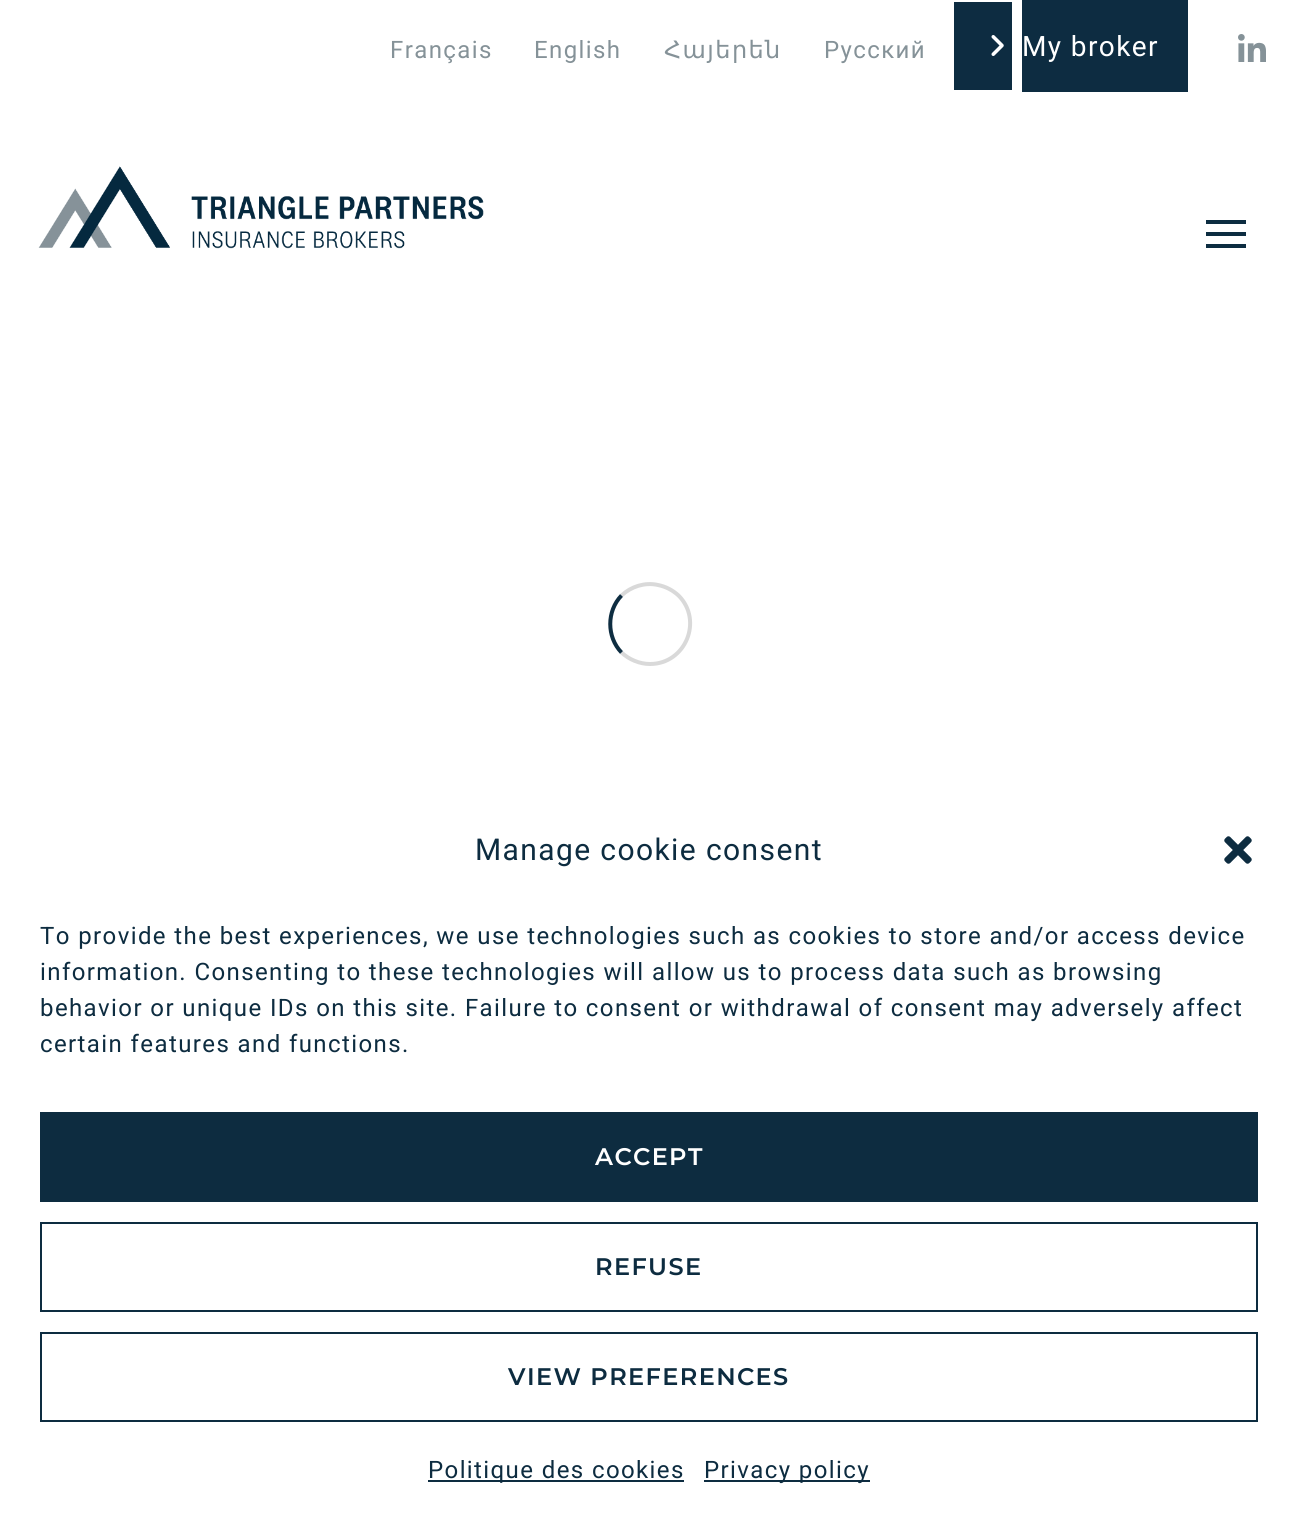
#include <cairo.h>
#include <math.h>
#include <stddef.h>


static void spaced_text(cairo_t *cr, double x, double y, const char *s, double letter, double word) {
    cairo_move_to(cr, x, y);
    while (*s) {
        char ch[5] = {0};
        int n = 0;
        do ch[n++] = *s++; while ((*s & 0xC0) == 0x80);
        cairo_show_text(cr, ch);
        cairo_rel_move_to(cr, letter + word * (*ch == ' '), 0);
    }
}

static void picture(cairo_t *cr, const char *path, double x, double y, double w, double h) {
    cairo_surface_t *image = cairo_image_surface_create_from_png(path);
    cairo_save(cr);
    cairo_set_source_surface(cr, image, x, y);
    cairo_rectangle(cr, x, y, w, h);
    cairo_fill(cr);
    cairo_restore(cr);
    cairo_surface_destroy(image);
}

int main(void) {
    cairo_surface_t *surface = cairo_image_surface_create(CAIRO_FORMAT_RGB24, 1297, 1528);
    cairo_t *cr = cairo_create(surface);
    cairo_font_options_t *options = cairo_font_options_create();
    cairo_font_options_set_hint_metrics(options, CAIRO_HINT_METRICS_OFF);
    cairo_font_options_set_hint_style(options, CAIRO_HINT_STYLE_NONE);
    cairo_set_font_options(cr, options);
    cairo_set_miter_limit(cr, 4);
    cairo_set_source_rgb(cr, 1, 1, 1);
    cairo_paint(cr);
    cairo_select_font_face(cr, "Roboto", CAIRO_FONT_SLANT_NORMAL, CAIRO_FONT_WEIGHT_NORMAL);
    cairo_set_font_size(cr, 24);
    cairo_set_source_rgb(cr, 0.522, 0.573, 0.596);
    spaced_text(cr, 390, 58, "Français", 1.4, 0);
    spaced_text(cr, 534, 58, "English", 1.4, 0);
    cairo_select_font_face(cr, "DejaVu Sans", CAIRO_FONT_SLANT_NORMAL, CAIRO_FONT_WEIGHT_NORMAL);
    spaced_text(cr, 664, 58, "Հայերեն", 1.4, 0);
    cairo_select_font_face(cr, "Roboto", CAIRO_FONT_SLANT_NORMAL, CAIRO_FONT_WEIGHT_NORMAL);
    spaced_text(cr, 824, 58, "Русский", 1.4, 0);
    cairo_set_source_rgb(cr, 0.051, 0.173, 0.255);
    cairo_rectangle(cr, 954, 2, 58, 88);
    cairo_fill(cr);
    cairo_rectangle(cr, 1022, 0, 166, 92);
    cairo_fill(cr);
    picture(cr, "img1.png", 991, 35, 13, 21);
    cairo_set_font_size(cr, 28);
    cairo_set_source_rgb(cr, 1, 1, 1);
    spaced_text(cr, 1022, 56, "My broker", 1.4, 0);
    picture(cr, "img2.png", 1238, 34, 28, 28);
    picture(cr, "img3.png", 38, 166, 446, 83);
    cairo_set_source_rgb(cr, 0.051, 0.176, 0.255);
    cairo_new_path(cr);
    cairo_move_to(cr, 1206, 232);
    cairo_line_to(cr, 1246, 232);
    cairo_line_to(cr, 1246, 236);
    cairo_line_to(cr, 1206, 236);
    cairo_close_path(cr);
    cairo_move_to(cr, 1206, 220);
    cairo_line_to(cr, 1246, 220);
    cairo_line_to(cr, 1246, 224);
    cairo_line_to(cr, 1206, 224);
    cairo_close_path(cr);
    cairo_move_to(cr, 1206, 244);
    cairo_line_to(cr, 1246, 244);
    cairo_line_to(cr, 1246, 248);
    cairo_line_to(cr, 1206, 248);
    cairo_close_path(cr);
    cairo_fill(cr);
    cairo_new_path(cr);
    cairo_move_to(cr, 621.5, 595.5);
    cairo_curve_to(cr, 631, 586.5, 645, 582, 658, 585);
    cairo_curve_to(cr, 665.5, 586.5, 672.5, 590, 678.5, 595.5);
    cairo_curve_to(cr, 703.5, 620.5, 685.5, 664, 650, 664);
    cairo_curve_to(cr, 639.5, 664, 629, 659.5, 621.5, 652.5);
    cairo_set_source_rgb(cr, 0.851, 0.851, 0.851);
    cairo_set_line_width(cr, 4);
    cairo_stroke(cr);
    cairo_new_path(cr);
    cairo_move_to(cr, 621.5, 652.5);
    cairo_curve_to(cr, 606.5, 637, 606.5, 611, 621.5, 595.5);
    cairo_set_source_rgb(cr, 0.055, 0.176, 0.255);
    cairo_stroke(cr);
    cairo_set_font_size(cr, 30);
    cairo_set_source_rgb(cr, 0.051, 0.173, 0.251);
    spaced_text(cr, 475, 860, "Manage cookie consent", 1.4, 0);
    picture(cr, "img4.png", 1224, 836, 28, 28);
    cairo_set_font_size(cr, 24);
    spaced_text(cr, 40, 944, "To provide the best experiences, we use technologies such as cookies to store and/or access device", 1.4, 0);
    spaced_text(cr, 40, 980, "information. Consenting to these technologies will allow us to process data such as browsing", 1.4, 0);
    spaced_text(cr, 40, 1016, "behavior or unique IDs on this site. Failure to consent or withdrawal of consent may adversely affect", 1.4, 0);
    spaced_text(cr, 40, 1052, "certain features and functions.", 1.4, 0);
    cairo_rectangle(cr, 40, 1112, 1218, 90);
    cairo_fill(cr);
    cairo_select_font_face(cr, "Montserrat SemiBold", CAIRO_FONT_SLANT_NORMAL, CAIRO_FONT_WEIGHT_NORMAL);
    cairo_set_source_rgb(cr, 1, 1, 1);
    spaced_text(cr, 595, 1165, "ACCEPT", 1.4, 0);
    cairo_rectangle(cr, 41, 1223, 1216, 88);
    cairo_set_source_rgb(cr, 0.051, 0.173, 0.251);
    cairo_set_line_width(cr, 2);
    cairo_stroke(cr);
    spaced_text(cr, 595, 1275, "REFUSE", 1.4, 0);
    cairo_rectangle(cr, 41, 1333, 1216, 88);
    cairo_stroke(cr);
    spaced_text(cr, 508, 1385, "VIEW PREFERENCES", 1.4, 0);
    cairo_rectangle(cr, 428, 1480, 256, 2);
    cairo_fill(cr);
    cairo_select_font_face(cr, "Roboto", CAIRO_FONT_SLANT_NORMAL, CAIRO_FONT_WEIGHT_NORMAL);
    spaced_text(cr, 428, 1478, "Politique des cookies", 1.4, 0);
    cairo_rectangle(cr, 704, 1480, 166, 2);
    cairo_fill(cr);
    spaced_text(cr, 704, 1478, "Privacy policy", 1.4, 0);
    cairo_surface_write_to_png(surface, "page.png");
    cairo_font_options_destroy(options);
    cairo_destroy(cr);
    cairo_surface_destroy(surface);
    return 0;
}
